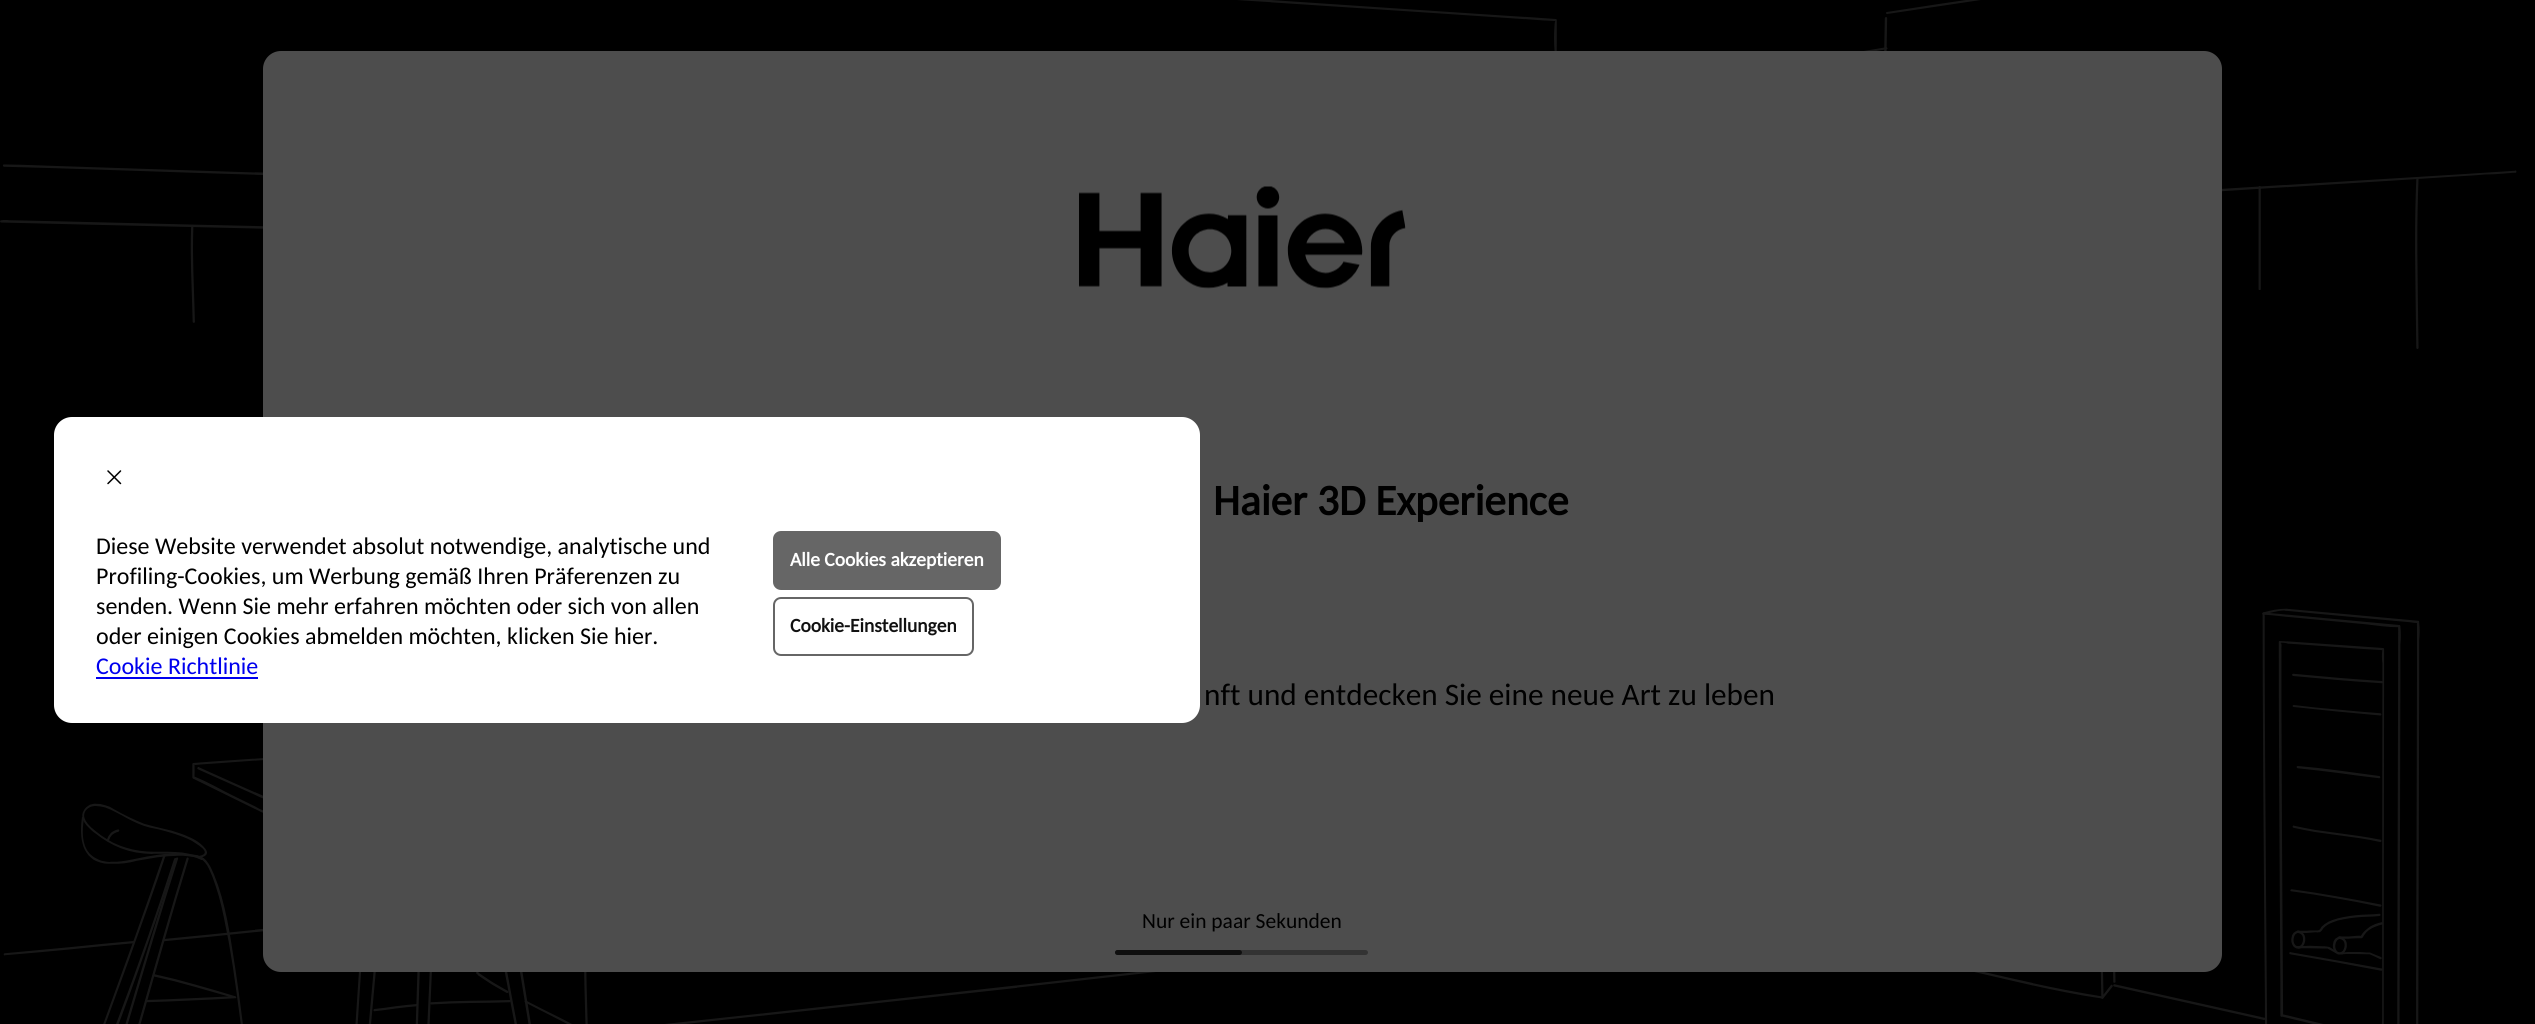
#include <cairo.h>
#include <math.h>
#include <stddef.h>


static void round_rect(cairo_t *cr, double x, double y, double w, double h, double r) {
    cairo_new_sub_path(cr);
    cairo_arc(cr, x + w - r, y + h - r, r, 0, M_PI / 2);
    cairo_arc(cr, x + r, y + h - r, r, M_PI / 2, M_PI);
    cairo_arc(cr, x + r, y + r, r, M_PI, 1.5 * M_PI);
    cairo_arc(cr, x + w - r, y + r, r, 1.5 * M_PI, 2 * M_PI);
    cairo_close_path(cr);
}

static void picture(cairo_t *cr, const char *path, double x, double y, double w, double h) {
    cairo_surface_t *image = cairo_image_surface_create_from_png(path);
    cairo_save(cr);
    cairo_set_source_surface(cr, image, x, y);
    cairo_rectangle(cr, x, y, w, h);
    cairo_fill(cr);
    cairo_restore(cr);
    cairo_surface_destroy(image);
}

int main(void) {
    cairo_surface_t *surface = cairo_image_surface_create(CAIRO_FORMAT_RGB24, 2535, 1024);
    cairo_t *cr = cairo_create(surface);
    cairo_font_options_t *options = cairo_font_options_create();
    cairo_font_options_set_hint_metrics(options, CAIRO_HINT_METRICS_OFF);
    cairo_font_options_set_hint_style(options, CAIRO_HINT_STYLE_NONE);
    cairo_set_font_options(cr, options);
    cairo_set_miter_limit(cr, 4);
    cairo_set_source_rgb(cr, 0, 0, 0);
    cairo_paint(cr);
    picture(cr, "img1.png", 0, 0, 2517, 1024);
    cairo_set_source_rgb(cr, 0.302, 0.302, 0.302);
    round_rect(cr, 263, 51, 1959, 921, 18);
    cairo_fill(cr);
    cairo_set_source_rgb(cr, 1, 1, 1);
    round_rect(cr, 54, 417, 1146, 306, 18);
    cairo_fill(cr);
    cairo_new_path(cr);
    cairo_move_to(cr, 120.5, 471);
    cairo_line_to(cr, 108, 483.5);
    cairo_move_to(cr, 108, 471);
    cairo_line_to(cr, 120.5, 483.5);
    cairo_set_source_rgb(cr, 0, 0, 0);
    cairo_set_line_width(cr, 1.5);
    cairo_set_line_cap(cr, CAIRO_LINE_CAP_ROUND);
    cairo_stroke(cr);
    cairo_select_font_face(cr, "Carlito", CAIRO_FONT_SLANT_NORMAL, CAIRO_FONT_WEIGHT_NORMAL);
    cairo_set_font_size(cr, 24);
    cairo_move_to(cr, 96, 554);
    cairo_show_text(cr, "Diese Website verwendet absolut notwendige, analytische und");
    cairo_move_to(cr, 96, 584);
    cairo_show_text(cr, "Profiling-Cookies, um Werbung gemäß Ihren Präferenzen zu");
    cairo_move_to(cr, 96, 614);
    cairo_show_text(cr, "senden. Wenn Sie mehr erfahren möchten oder sich von allen");
    cairo_move_to(cr, 96, 644);
    cairo_show_text(cr, "oder einigen Cookies abmelden möchten, klicken Sie hier.");
    cairo_set_source_rgb(cr, 0, 0, 0.933);
    cairo_move_to(cr, 96, 674);
    cairo_show_text(cr, "Cookie Richtlinie");
    cairo_rectangle(cr, 96, 677, 162, 2);
    cairo_fill(cr);
    cairo_set_source_rgb(cr, 0.4, 0.4, 0.4);
    round_rect(cr, 773, 531, 228, 59, 8);
    cairo_fill(cr);
    cairo_select_font_face(cr, "Carlito", CAIRO_FONT_SLANT_NORMAL, CAIRO_FONT_WEIGHT_BOLD);
    cairo_set_font_size(cr, 19.5);
    cairo_set_source_rgb(cr, 1, 1, 1);
    cairo_move_to(cr, 790, 566);
    cairo_show_text(cr, "Alle Cookies akzeptieren");
    round_rect(cr, 774, 598, 199, 57, 7);
    cairo_set_source_rgb(cr, 0.4, 0.4, 0.4);
    cairo_set_line_width(cr, 2);
    cairo_set_line_cap(cr, CAIRO_LINE_CAP_BUTT);
    cairo_stroke(cr);
    cairo_set_source_rgb(cr, 0.067, 0.067, 0.067);
    cairo_move_to(cr, 790, 632);
    cairo_show_text(cr, "Cookie-Einstellungen");
    picture(cr, "img2.png", 1079, 186, 327, 103);
    cairo_set_font_size(cr, 43.25);
    cairo_set_source_rgb(cr, 0, 0, 0);
    cairo_move_to(cr, 1213, 515);
    cairo_show_text(cr, "Haier 3D Experience");
    cairo_select_font_face(cr, "Carlito", CAIRO_FONT_SLANT_NORMAL, CAIRO_FONT_WEIGHT_NORMAL);
    cairo_set_font_size(cr, 31.25);
    cairo_move_to(cr, 1204, 705);
    cairo_show_text(cr, "nft und entdecken Sie eine neue Art zu leben");
    cairo_set_font_size(cr, 21.5);
    cairo_move_to(cr, 1142, 928);
    cairo_show_text(cr, "Nur ein paar Sekunden");
    cairo_set_source_rgb(cr, 0.2, 0.2, 0.2);
    round_rect(cr, 1115, 950, 253, 5, 2.5);
    cairo_fill(cr);
    cairo_set_source_rgb(cr, 0.059, 0.059, 0.059);
    round_rect(cr, 1115, 950, 127, 5, 2.5);
    cairo_fill(cr);
    cairo_surface_write_to_png(surface, "page.png");
    cairo_font_options_destroy(options);
    cairo_destroy(cr);
    cairo_surface_destroy(surface);
    return 0;
}
